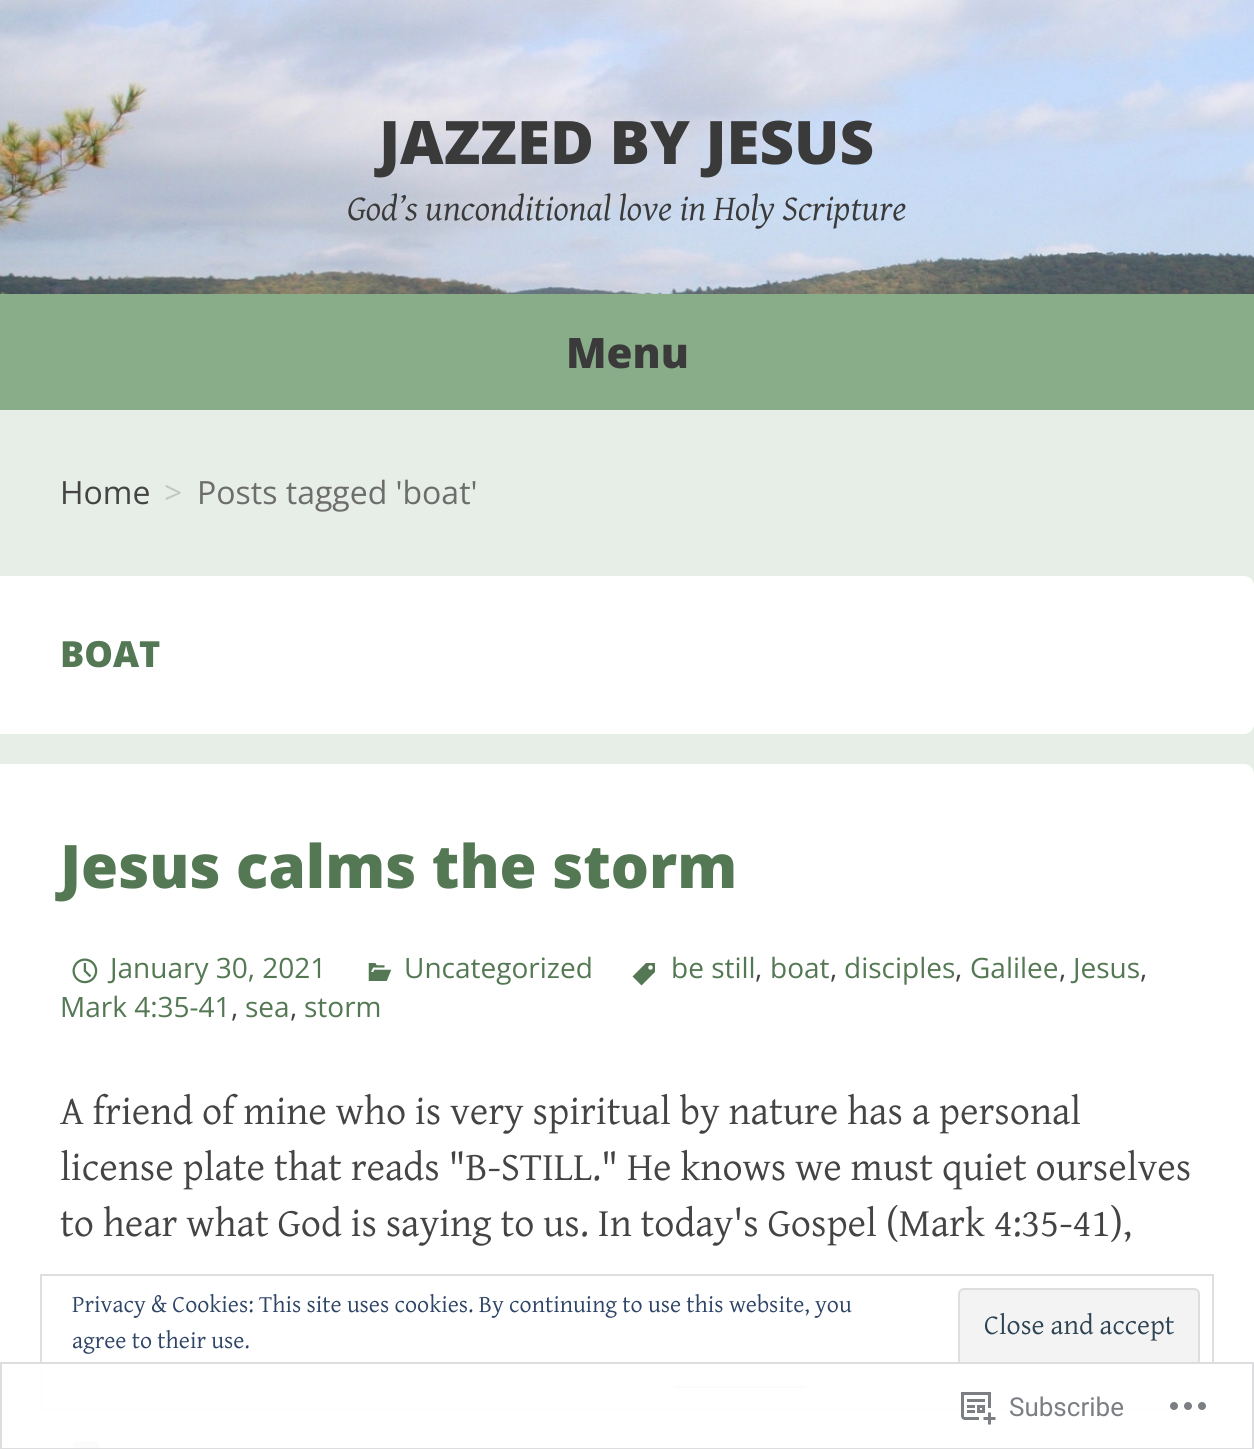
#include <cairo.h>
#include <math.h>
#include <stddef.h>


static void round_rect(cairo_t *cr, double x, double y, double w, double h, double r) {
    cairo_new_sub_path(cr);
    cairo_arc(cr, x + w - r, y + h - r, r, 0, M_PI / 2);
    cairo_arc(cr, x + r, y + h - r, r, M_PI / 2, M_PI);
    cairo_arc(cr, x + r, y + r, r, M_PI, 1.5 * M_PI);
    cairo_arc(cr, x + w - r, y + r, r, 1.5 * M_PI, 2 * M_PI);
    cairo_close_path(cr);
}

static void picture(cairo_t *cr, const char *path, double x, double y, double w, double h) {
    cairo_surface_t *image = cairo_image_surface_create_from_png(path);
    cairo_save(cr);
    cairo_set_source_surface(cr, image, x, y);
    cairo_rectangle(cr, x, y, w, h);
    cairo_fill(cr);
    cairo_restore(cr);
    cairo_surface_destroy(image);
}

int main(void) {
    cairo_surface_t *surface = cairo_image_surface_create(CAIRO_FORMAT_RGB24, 1254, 1449);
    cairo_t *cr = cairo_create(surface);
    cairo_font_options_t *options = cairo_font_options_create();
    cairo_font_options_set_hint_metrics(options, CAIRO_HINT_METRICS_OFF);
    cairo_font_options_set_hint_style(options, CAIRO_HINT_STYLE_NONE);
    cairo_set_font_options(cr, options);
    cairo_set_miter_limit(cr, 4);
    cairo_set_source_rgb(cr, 0.906, 0.929, 0.906);
    cairo_paint(cr);
    picture(cr, "img1.png", 0, 0, 1254, 294);
    cairo_select_font_face(cr, "Open Sans ExtraBold", CAIRO_FONT_SLANT_NORMAL, CAIRO_FONT_WEIGHT_NORMAL);
    cairo_set_font_size(cr, 60);
    cairo_set_source_rgb(cr, 0.227, 0.227, 0.227);
    cairo_move_to(cr, 379, 164);
    cairo_show_text(cr, "JAZZED BY JESUS");
    cairo_select_font_face(cr, "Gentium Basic", CAIRO_FONT_SLANT_ITALIC, CAIRO_FONT_WEIGHT_NORMAL);
    cairo_set_font_size(cr, 36);
    cairo_move_to(cr, 347, 220);
    cairo_show_text(cr, "God’s unconditional love in Holy Scripture");
    cairo_set_source_rgb(cr, 0.541, 0.678, 0.537);
    cairo_rectangle(cr, 0, 294, 1254, 116);
    cairo_fill(cr);
    cairo_select_font_face(cr, "Open Sans ExtraBold", CAIRO_FONT_SLANT_NORMAL, CAIRO_FONT_WEIGHT_NORMAL);
    cairo_set_font_size(cr, 42);
    cairo_set_source_rgb(cr, 0.227, 0.227, 0.227);
    cairo_move_to(cr, 566, 368);
    cairo_show_text(cr, "Menu");
    cairo_select_font_face(cr, "Open Sans", CAIRO_FONT_SLANT_NORMAL, CAIRO_FONT_WEIGHT_NORMAL);
    cairo_set_font_size(cr, 32);
    cairo_set_source_rgb(cr, 0.267, 0.267, 0.267);
    cairo_move_to(cr, 60, 504);
    cairo_show_text(cr, "Home");
    cairo_set_source_rgb(cr, 0.757, 0.776, 0.757);
    cairo_move_to(cr, 164, 504);
    cairo_show_text(cr, ">");
    cairo_set_source_rgb(cr, 0.427, 0.427, 0.427);
    cairo_move_to(cr, 197, 504);
    cairo_show_text(cr, "Posts tagged 'boat'");
    cairo_set_source_rgb(cr, 1, 1, 1);
    cairo_new_path(cr);
    cairo_move_to(cr, 0, 576);
    cairo_line_to(cr, 1244, 576);
    cairo_curve_to(cr, 1249.5, 576, 1254, 580.5, 1254, 586);
    cairo_line_to(cr, 1254, 724);
    cairo_curve_to(cr, 1254, 729.5, 1249.5, 734, 1244, 734);
    cairo_line_to(cr, 0, 734);
    cairo_close_path(cr);
    cairo_fill(cr);
    cairo_select_font_face(cr, "Open Sans ExtraBold", CAIRO_FONT_SLANT_NORMAL, CAIRO_FONT_WEIGHT_NORMAL);
    cairo_set_font_size(cr, 36);
    cairo_set_source_rgb(cr, 0.325, 0.471, 0.325);
    cairo_move_to(cr, 60, 667);
    cairo_show_text(cr, "BOAT");
    cairo_set_source_rgb(cr, 1, 1, 1);
    cairo_new_path(cr);
    cairo_move_to(cr, 0, 764);
    cairo_line_to(cr, 1244, 764);
    cairo_curve_to(cr, 1249.5, 764, 1254, 768.5, 1254, 774);
    cairo_line_to(cr, 1254, 1449);
    cairo_curve_to(cr, 1254, 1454.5, 1249.5, 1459, 1244, 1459);
    cairo_line_to(cr, 0, 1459);
    cairo_close_path(cr);
    cairo_fill(cr);
    cairo_set_font_size(cr, 60);
    cairo_set_source_rgb(cr, 0.325, 0.471, 0.325);
    cairo_move_to(cr, 60, 888);
    cairo_show_text(cr, "Jesus calms the storm");
    picture(cr, "img2.png", 632, 963, 23, 23);
    cairo_select_font_face(cr, "Open Sans", CAIRO_FONT_SLANT_NORMAL, CAIRO_FONT_WEIGHT_NORMAL);
    cairo_set_font_size(cr, 28);
    cairo_move_to(cr, 671, 978);
    cairo_show_text(cr, "be still");
    cairo_set_source_rgb(cr, 0.267, 0.267, 0.267);
    cairo_move_to(cr, 755, 978);
    cairo_show_text(cr, ",");
    cairo_set_source_rgb(cr, 0.325, 0.471, 0.325);
    cairo_move_to(cr, 770, 978);
    cairo_show_text(cr, "boat");
    cairo_set_source_rgb(cr, 0.267, 0.267, 0.267);
    cairo_move_to(cr, 830, 978);
    cairo_show_text(cr, ",");
    cairo_set_source_rgb(cr, 0.325, 0.471, 0.325);
    cairo_move_to(cr, 844, 978);
    cairo_show_text(cr, "disciples");
    cairo_set_source_rgb(cr, 0.267, 0.267, 0.267);
    cairo_move_to(cr, 955, 978);
    cairo_show_text(cr, ",");
    cairo_set_source_rgb(cr, 0.325, 0.471, 0.325);
    cairo_move_to(cr, 970, 978);
    cairo_show_text(cr, "Galilee");
    cairo_set_source_rgb(cr, 0.267, 0.267, 0.267);
    cairo_move_to(cr, 1059, 978);
    cairo_show_text(cr, ",");
    cairo_set_source_rgb(cr, 0.325, 0.471, 0.325);
    cairo_move_to(cr, 1073, 978);
    cairo_show_text(cr, "Jesus");
    cairo_set_source_rgb(cr, 0.267, 0.267, 0.267);
    cairo_move_to(cr, 1140, 978);
    cairo_show_text(cr, ",");
    cairo_set_source_rgb(cr, 0.325, 0.471, 0.325);
    cairo_move_to(cr, 60, 1017);
    cairo_show_text(cr, "Mark 4:35-41");
    cairo_set_source_rgb(cr, 0.267, 0.267, 0.267);
    cairo_move_to(cr, 231, 1017);
    cairo_show_text(cr, ",");
    cairo_set_source_rgb(cr, 0.325, 0.471, 0.325);
    cairo_move_to(cr, 245, 1017);
    cairo_show_text(cr, "sea");
    cairo_set_source_rgb(cr, 0.267, 0.267, 0.267);
    cairo_move_to(cr, 290, 1017);
    cairo_show_text(cr, ",");
    cairo_set_source_rgb(cr, 0.325, 0.471, 0.325);
    cairo_move_to(cr, 304, 1017);
    cairo_show_text(cr, "storm");
    picture(cr, "img3.png", 72, 958, 26, 26);
    cairo_move_to(cr, 110, 978);
    cairo_show_text(cr, "January 30, 2021");
    picture(cr, "img4.png", 368, 963, 24, 18);
    cairo_move_to(cr, 404, 978);
    cairo_show_text(cr, "Uncategorized");
    cairo_select_font_face(cr, "Gentium Basic", CAIRO_FONT_SLANT_NORMAL, CAIRO_FONT_WEIGHT_NORMAL);
    cairo_set_font_size(cr, 40);
    cairo_set_source_rgb(cr, 0.267, 0.267, 0.267);
    cairo_move_to(cr, 60, 1124);
    cairo_show_text(cr, "A friend of mine who is very spiritual by nature has a personal");
    cairo_move_to(cr, 60, 1180);
    cairo_show_text(cr, "license plate that reads \"B-STILL.\" He knows we must quiet ourselves");
    cairo_move_to(cr, 60, 1236);
    cairo_show_text(cr, "to hear what God is saying to us. In today's Gospel (Mark 4:35-41),");
    picture(cr, "img5.png", 72, 1441, 28, 8);
    cairo_rectangle(cr, 41, 1275, 1172, 134);
    cairo_set_source_rgb(cr, 0.871, 0.871, 0.871);
    cairo_stroke(cr);
    cairo_set_font_size(cr, 24);
    cairo_set_source_rgb(cr, 0.18, 0.267, 0.404);
    cairo_move_to(cr, 72, 1312);
    cairo_show_text(cr, "Privacy & Cookies: This site uses cookies. By continuing to use this website, you");
    cairo_move_to(cr, 72, 1348);
    cairo_show_text(cr, "agree to their use.");
    cairo_set_source_rgb(cr, 0.953, 0.953, 0.953);
    round_rect(cr, 959, 1289, 240, 76, 5);
    cairo_fill_preserve(cr);
    cairo_set_source_rgb(cr, 0.871, 0.871, 0.871);
    cairo_stroke(cr);
    cairo_set_font_size(cr, 28);
    cairo_set_source_rgb(cr, 0.18, 0.267, 0.325);
    cairo_move_to(cr, 984, 1334);
    cairo_show_text(cr, "Close and accept");
    cairo_set_source_rgb(cr, 0.18, 0.267, 0.404);
    cairo_rectangle(cr, 674, 1386, 132, 2);
    cairo_fill(cr);
    cairo_set_source_rgba(cr, 1, 1, 1, 0.98);
    cairo_rectangle(cr, 40, 1362, 1174, 87);
    cairo_fill(cr);
    cairo_rectangle(cr, 1, 1363, 1252, 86);
    cairo_set_source_rgba(cr, 0.863, 0.863, 0.871, 0.98);
    cairo_stroke(cr);
    picture(cr, "img6.png", 961, 1392, 35, 33);
    cairo_select_font_face(cr, "Roboto", CAIRO_FONT_SLANT_NORMAL, CAIRO_FONT_WEIGHT_NORMAL);
    cairo_set_font_size(cr, 26);
    cairo_set_source_rgb(cr, 0.482, 0.498, 0.518);
    cairo_move_to(cr, 1009, 1416);
    cairo_show_text(cr, "Subscribe");
    picture(cr, "img7.png", 1170, 1402, 36, 8);
    cairo_surface_write_to_png(surface, "page.png");
    cairo_font_options_destroy(options);
    cairo_destroy(cr);
    cairo_surface_destroy(surface);
    return 0;
}
